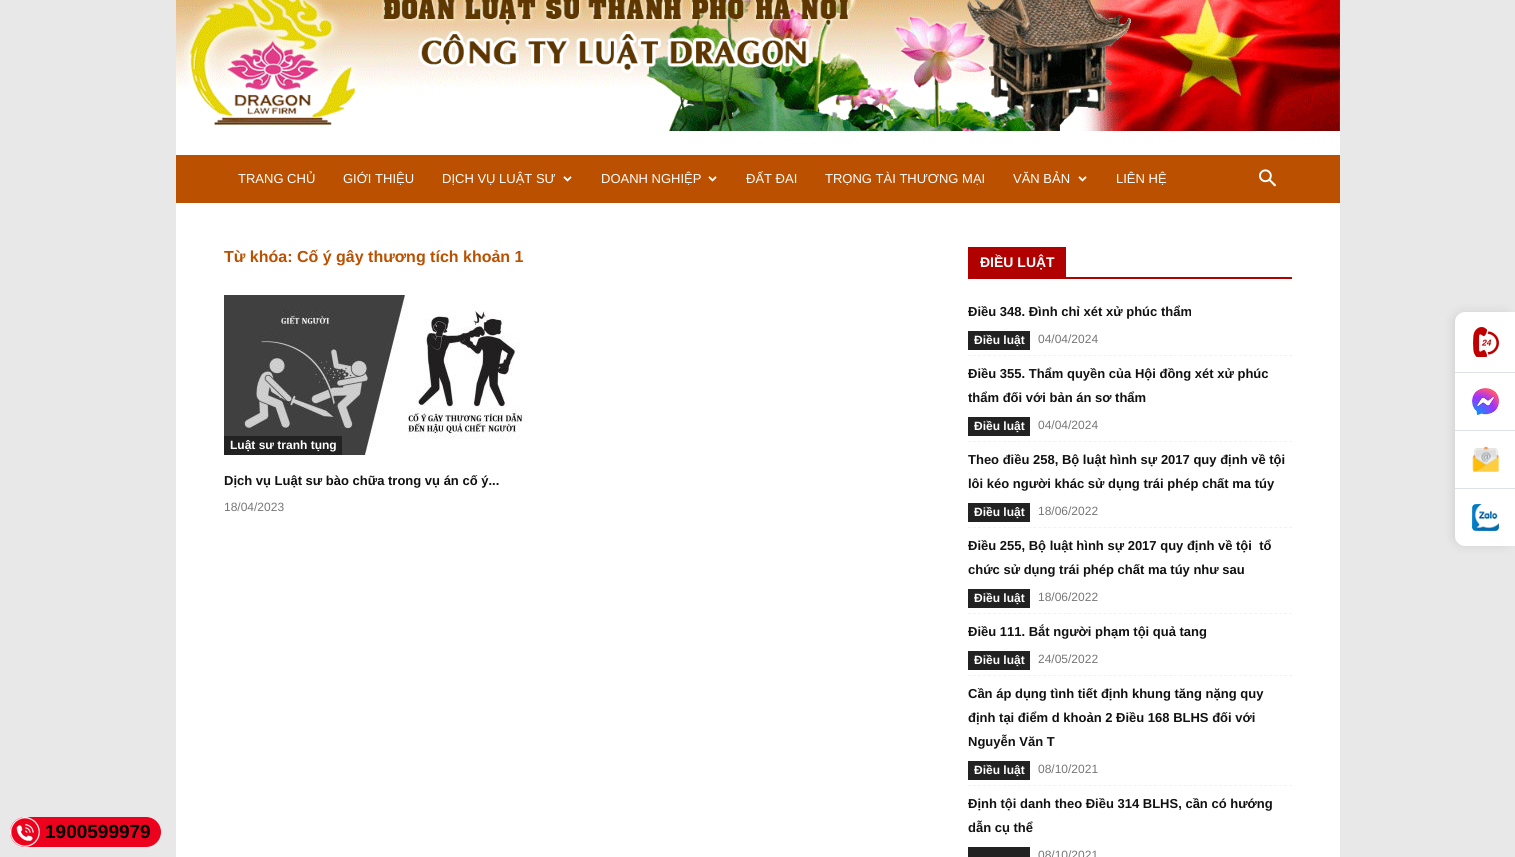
#include <cairo.h>
#include <math.h>
#include <stddef.h>


static void round_rect(cairo_t *cr, double x, double y, double w, double h, double r) {
    cairo_new_sub_path(cr);
    cairo_arc(cr, x + w - r, y + h - r, r, 0, M_PI / 2);
    cairo_arc(cr, x + r, y + h - r, r, M_PI / 2, M_PI);
    cairo_arc(cr, x + r, y + r, r, M_PI, 1.5 * M_PI);
    cairo_arc(cr, x + w - r, y + r, r, 1.5 * M_PI, 2 * M_PI);
    cairo_close_path(cr);
}

static void shadow(cairo_t *cr, double x, double y, double w, double h, double r, double blur, double alpha) {
    cairo_push_group_with_content(cr, CAIRO_CONTENT_ALPHA);
    cairo_set_operator(cr, CAIRO_OPERATOR_SOURCE);
    for (int i = 15; i >= -15 && fmin(w, h) + blur * i / 3 > 0; i -= 2) {
        double e = blur * i / 6;
        cairo_set_source_rgba(cr, 0, 0, 0, alpha * erfc((i - 1) / 8.5) / 2);
        round_rect(cr, x - e, y - e, w + 2 * e, h + 2 * e, fmax(0, fmin(r + e + blur * .6, fmin(w, h) / 2 + e)));
        cairo_fill(cr);
    }
    cairo_pattern_t *soft = cairo_pop_group(cr);
    cairo_mask(cr, soft);
    cairo_pattern_destroy(soft);
}

static void picture(cairo_t *cr, const char *path, double x, double y, double w, double h) {
    cairo_surface_t *image = cairo_image_surface_create_from_png(path);
    cairo_save(cr);
    cairo_set_source_surface(cr, image, x, y);
    cairo_rectangle(cr, x, y, w, h);
    cairo_fill(cr);
    cairo_restore(cr);
    cairo_surface_destroy(image);
}

int main(void) {
    cairo_surface_t *surface = cairo_image_surface_create(CAIRO_FORMAT_RGB24, 1515, 857);
    cairo_t *cr = cairo_create(surface);
    cairo_font_options_t *options = cairo_font_options_create();
    cairo_font_options_set_hint_metrics(options, CAIRO_HINT_METRICS_OFF);
    cairo_font_options_set_hint_style(options, CAIRO_HINT_STYLE_NONE);
    cairo_set_font_options(cr, options);
    cairo_set_miter_limit(cr, 4);
    cairo_set_source_rgb(cr, 0.91, 0.91, 0.91);
    cairo_paint(cr);
    cairo_set_source_rgb(cr, 1, 1, 1);
    cairo_rectangle(cr, 176, 131, 1164, 24);
    cairo_fill(cr);
    picture(cr, "img1.png", 176, 0, 1164, 131);
    cairo_set_source_rgb(cr, 0.729, 0.314, 0);
    cairo_rectangle(cr, 176, 155, 1164, 48);
    cairo_fill(cr);
    cairo_select_font_face(cr, "Liberation Sans", CAIRO_FONT_SLANT_NORMAL, CAIRO_FONT_WEIGHT_NORMAL);
    cairo_set_font_size(cr, 13);
    cairo_set_source_rgb(cr, 1, 1, 1);
    cairo_move_to(cr, 238, 183);
    cairo_show_text(cr, "TRANG CHỦ");
    cairo_move_to(cr, 343, 183);
    cairo_show_text(cr, "GIỚI THIỆU");
    cairo_move_to(cr, 442, 183);
    cairo_show_text(cr, "DỊCH VỤ LUẬT SƯ");
    picture(cr, "img2.png", 563, 176, 9, 6);
    cairo_move_to(cr, 601, 183);
    cairo_show_text(cr, "DOANH NGHIỆP");
    picture(cr, "img2.png", 708, 176, 9, 6);
    cairo_move_to(cr, 746, 183);
    cairo_show_text(cr, "ĐẤT ĐAI");
    cairo_move_to(cr, 825, 183);
    cairo_show_text(cr, "TRỌNG TÀI THƯƠNG MẠI");
    cairo_move_to(cr, 1013, 183);
    cairo_show_text(cr, "VĂN BẢN");
    picture(cr, "img2.png", 1078, 176, 9, 6);
    cairo_move_to(cr, 1116, 183);
    cairo_show_text(cr, "LIÊN HỆ");
    picture(cr, "img3.png", 1259, 169, 17, 18);
    cairo_rectangle(cr, 176, 203, 1164, 654);
    cairo_fill(cr);
    cairo_select_font_face(cr, "Liberation Sans", CAIRO_FONT_SLANT_NORMAL, CAIRO_FONT_WEIGHT_BOLD);
    cairo_set_font_size(cr, 16);
    cairo_set_source_rgb(cr, 0.729, 0.314, 0);
    cairo_move_to(cr, 224, 262);
    cairo_show_text(cr, "Từ khóa: Cố ý gây thương tích khoản 1");
    picture(cr, "img4.png", 224, 295, 304, 160);
    cairo_set_source_rgb(cr, 0.133, 0.133, 0.133);
    cairo_rectangle(cr, 224, 436, 118, 19);
    cairo_fill(cr);
    cairo_set_font_size(cr, 12);
    cairo_set_source_rgb(cr, 1, 1, 1);
    cairo_move_to(cr, 230, 449);
    cairo_show_text(cr, "Luật sư tranh tụng");
    cairo_set_font_size(cr, 13);
    cairo_set_source_rgb(cr, 0.067, 0.067, 0.067);
    cairo_move_to(cr, 224, 485);
    cairo_show_text(cr, "Dịch vụ Luật sư bào chữa trong vụ án cố ý...");
    cairo_select_font_face(cr, "Liberation Sans", CAIRO_FONT_SLANT_NORMAL, CAIRO_FONT_WEIGHT_NORMAL);
    cairo_set_font_size(cr, 12);
    cairo_set_source_rgb(cr, 0.463, 0.463, 0.463);
    cairo_move_to(cr, 224, 511);
    cairo_show_text(cr, "18/04/2023");
    cairo_set_source_rgb(cr, 0.69, 0, 0);
    cairo_rectangle(cr, 968, 277, 324, 2);
    cairo_fill(cr);
    cairo_rectangle(cr, 968, 247, 98, 30);
    cairo_fill(cr);
    cairo_select_font_face(cr, "Liberation Sans", CAIRO_FONT_SLANT_NORMAL, CAIRO_FONT_WEIGHT_BOLD);
    cairo_set_font_size(cr, 14);
    cairo_set_source_rgb(cr, 1, 1, 1);
    cairo_move_to(cr, 980, 267);
    cairo_show_text(cr, "ĐIỀU LUẬT");
    cairo_new_path(cr);
    cairo_move_to(cr, 968, 355.5);
    cairo_line_to(cr, 1292, 355.5);
    cairo_set_source_rgb(cr, 0.949, 0.949, 0.949);
    cairo_set_line_width(cr, 1);
    cairo_set_dash(cr, (double[]){3, 2.02}, 2, 0);
    cairo_stroke(cr);
    cairo_set_font_size(cr, 13);
    cairo_set_source_rgb(cr, 0.067, 0.067, 0.067);
    cairo_move_to(cr, 968, 316);
    cairo_show_text(cr, "Điều 348. Đình chỉ xét xử phúc thẩm");
    cairo_set_source_rgb(cr, 0.133, 0.133, 0.133);
    cairo_rectangle(cr, 968, 331, 62, 19);
    cairo_fill(cr);
    cairo_set_font_size(cr, 12);
    cairo_set_source_rgb(cr, 1, 1, 1);
    cairo_move_to(cr, 974, 344);
    cairo_show_text(cr, "Điều luật");
    cairo_select_font_face(cr, "Liberation Sans", CAIRO_FONT_SLANT_NORMAL, CAIRO_FONT_WEIGHT_NORMAL);
    cairo_set_source_rgb(cr, 0.463, 0.463, 0.463);
    cairo_move_to(cr, 1038, 343);
    cairo_show_text(cr, "04/04/2024");
    cairo_new_path(cr);
    cairo_move_to(cr, 968, 441.5);
    cairo_line_to(cr, 1292, 441.5);
    cairo_set_source_rgb(cr, 0.949, 0.949, 0.949);
    cairo_stroke(cr);
    cairo_select_font_face(cr, "Liberation Sans", CAIRO_FONT_SLANT_NORMAL, CAIRO_FONT_WEIGHT_BOLD);
    cairo_set_font_size(cr, 13);
    cairo_set_source_rgb(cr, 0.067, 0.067, 0.067);
    cairo_move_to(cr, 968, 378);
    cairo_show_text(cr, "Điều 355. Thẩm quyền của Hội đồng xét xử phúc");
    cairo_move_to(cr, 968, 402);
    cairo_show_text(cr, "thẩm đối với bản án sơ thẩm");
    cairo_set_source_rgb(cr, 0.133, 0.133, 0.133);
    cairo_rectangle(cr, 968, 417, 62, 19);
    cairo_fill(cr);
    cairo_set_font_size(cr, 12);
    cairo_set_source_rgb(cr, 1, 1, 1);
    cairo_move_to(cr, 974, 430);
    cairo_show_text(cr, "Điều luật");
    cairo_select_font_face(cr, "Liberation Sans", CAIRO_FONT_SLANT_NORMAL, CAIRO_FONT_WEIGHT_NORMAL);
    cairo_set_source_rgb(cr, 0.463, 0.463, 0.463);
    cairo_move_to(cr, 1038, 429);
    cairo_show_text(cr, "04/04/2024");
    cairo_new_path(cr);
    cairo_move_to(cr, 968, 527.5);
    cairo_line_to(cr, 1292, 527.5);
    cairo_set_source_rgb(cr, 0.949, 0.949, 0.949);
    cairo_stroke(cr);
    cairo_select_font_face(cr, "Liberation Sans", CAIRO_FONT_SLANT_NORMAL, CAIRO_FONT_WEIGHT_BOLD);
    cairo_set_font_size(cr, 13);
    cairo_set_source_rgb(cr, 0.067, 0.067, 0.067);
    cairo_move_to(cr, 968, 464);
    cairo_show_text(cr, "Theo điều 258, Bộ luật hình sự 2017 quy định về tội");
    cairo_move_to(cr, 968, 488);
    cairo_show_text(cr, "lôi kéo người khác sử dụng trái phép chất ma túy");
    cairo_set_source_rgb(cr, 0.133, 0.133, 0.133);
    cairo_rectangle(cr, 968, 503, 62, 19);
    cairo_fill(cr);
    cairo_set_font_size(cr, 12);
    cairo_set_source_rgb(cr, 1, 1, 1);
    cairo_move_to(cr, 974, 516);
    cairo_show_text(cr, "Điều luật");
    cairo_select_font_face(cr, "Liberation Sans", CAIRO_FONT_SLANT_NORMAL, CAIRO_FONT_WEIGHT_NORMAL);
    cairo_set_source_rgb(cr, 0.463, 0.463, 0.463);
    cairo_move_to(cr, 1038, 515);
    cairo_show_text(cr, "18/06/2022");
    cairo_new_path(cr);
    cairo_move_to(cr, 968, 613.5);
    cairo_line_to(cr, 1292, 613.5);
    cairo_set_source_rgb(cr, 0.949, 0.949, 0.949);
    cairo_stroke(cr);
    cairo_select_font_face(cr, "Liberation Sans", CAIRO_FONT_SLANT_NORMAL, CAIRO_FONT_WEIGHT_BOLD);
    cairo_set_font_size(cr, 13);
    cairo_set_source_rgb(cr, 0.067, 0.067, 0.067);
    cairo_move_to(cr, 968, 550);
    cairo_show_text(cr, "Điều 255, Bộ luật hình sự 2017 quy định về tội  tổ");
    cairo_move_to(cr, 968, 574);
    cairo_show_text(cr, "chức sử dụng trái phép chất ma túy như sau");
    cairo_set_source_rgb(cr, 0.133, 0.133, 0.133);
    cairo_rectangle(cr, 968, 589, 62, 19);
    cairo_fill(cr);
    cairo_set_font_size(cr, 12);
    cairo_set_source_rgb(cr, 1, 1, 1);
    cairo_move_to(cr, 974, 602);
    cairo_show_text(cr, "Điều luật");
    cairo_select_font_face(cr, "Liberation Sans", CAIRO_FONT_SLANT_NORMAL, CAIRO_FONT_WEIGHT_NORMAL);
    cairo_set_source_rgb(cr, 0.463, 0.463, 0.463);
    cairo_move_to(cr, 1038, 601);
    cairo_show_text(cr, "18/06/2022");
    cairo_new_path(cr);
    cairo_move_to(cr, 968, 675.5);
    cairo_line_to(cr, 1292, 675.5);
    cairo_set_source_rgb(cr, 0.949, 0.949, 0.949);
    cairo_stroke(cr);
    cairo_select_font_face(cr, "Liberation Sans", CAIRO_FONT_SLANT_NORMAL, CAIRO_FONT_WEIGHT_BOLD);
    cairo_set_font_size(cr, 13);
    cairo_set_source_rgb(cr, 0.067, 0.067, 0.067);
    cairo_move_to(cr, 968, 636);
    cairo_show_text(cr, "Điều 111. Bắt người phạm tội quả tang");
    cairo_set_source_rgb(cr, 0.133, 0.133, 0.133);
    cairo_rectangle(cr, 968, 651, 62, 19);
    cairo_fill(cr);
    cairo_set_font_size(cr, 12);
    cairo_set_source_rgb(cr, 1, 1, 1);
    cairo_move_to(cr, 974, 664);
    cairo_show_text(cr, "Điều luật");
    cairo_select_font_face(cr, "Liberation Sans", CAIRO_FONT_SLANT_NORMAL, CAIRO_FONT_WEIGHT_NORMAL);
    cairo_set_source_rgb(cr, 0.463, 0.463, 0.463);
    cairo_move_to(cr, 1038, 663);
    cairo_show_text(cr, "24/05/2022");
    cairo_new_path(cr);
    cairo_move_to(cr, 968, 785.5);
    cairo_line_to(cr, 1292, 785.5);
    cairo_set_source_rgb(cr, 0.949, 0.949, 0.949);
    cairo_stroke(cr);
    cairo_select_font_face(cr, "Liberation Sans", CAIRO_FONT_SLANT_NORMAL, CAIRO_FONT_WEIGHT_BOLD);
    cairo_set_font_size(cr, 13);
    cairo_set_source_rgb(cr, 0.067, 0.067, 0.067);
    cairo_move_to(cr, 968, 698);
    cairo_show_text(cr, "Cần áp dụng tình tiết định khung tăng nặng quy");
    cairo_move_to(cr, 968, 722);
    cairo_show_text(cr, "định tại điểm d khoản 2 Điều 168 BLHS đối với");
    cairo_move_to(cr, 968, 746);
    cairo_show_text(cr, "Nguyễn Văn T");
    cairo_set_source_rgb(cr, 0.133, 0.133, 0.133);
    cairo_rectangle(cr, 968, 761, 62, 19);
    cairo_fill(cr);
    cairo_set_font_size(cr, 12);
    cairo_set_source_rgb(cr, 1, 1, 1);
    cairo_move_to(cr, 974, 774);
    cairo_show_text(cr, "Điều luật");
    cairo_select_font_face(cr, "Liberation Sans", CAIRO_FONT_SLANT_NORMAL, CAIRO_FONT_WEIGHT_NORMAL);
    cairo_set_source_rgb(cr, 0.463, 0.463, 0.463);
    cairo_move_to(cr, 1038, 773);
    cairo_show_text(cr, "08/10/2021");
    cairo_select_font_face(cr, "Liberation Sans", CAIRO_FONT_SLANT_NORMAL, CAIRO_FONT_WEIGHT_BOLD);
    cairo_set_font_size(cr, 13);
    cairo_set_source_rgb(cr, 0.067, 0.067, 0.067);
    cairo_move_to(cr, 968, 808);
    cairo_show_text(cr, "Định tội danh theo Điều 314 BLHS, cần có hướng");
    cairo_move_to(cr, 968, 832);
    cairo_show_text(cr, "dẫn cụ thể");
    cairo_set_source_rgb(cr, 0.133, 0.133, 0.133);
    cairo_rectangle(cr, 968, 847, 62, 10);
    cairo_fill(cr);
    cairo_select_font_face(cr, "Liberation Sans", CAIRO_FONT_SLANT_NORMAL, CAIRO_FONT_WEIGHT_NORMAL);
    cairo_set_font_size(cr, 12);
    cairo_set_source_rgb(cr, 0.463, 0.463, 0.463);
    cairo_move_to(cr, 1038, 859);
    cairo_show_text(cr, "08/10/2021");
    cairo_set_source_rgb(cr, 0, 0, 0);
    shadow(cr, 1453, 312, 60, 234, 10, 5, 0.1);
    cairo_set_source_rgb(cr, 1, 1, 1);
    cairo_new_path(cr);
    cairo_move_to(cr, 1465, 312);
    cairo_line_to(cr, 1515, 312);
    cairo_line_to(cr, 1515, 546);
    cairo_line_to(cr, 1465, 546);
    cairo_curve_to(cr, 1459.5, 546, 1455, 541.5, 1455, 536);
    cairo_line_to(cr, 1455, 322);
    cairo_curve_to(cr, 1455, 316.5, 1459.5, 312, 1465, 312);
    cairo_close_path(cr);
    cairo_fill(cr);
    cairo_set_source_rgb(cr, 0.871, 0.886, 0.902);
    cairo_rectangle(cr, 1455, 372, 60, 1);
    cairo_fill(cr);
    picture(cr, "img5.png", 1473, 327, 26, 30);
    cairo_rectangle(cr, 1455, 430, 60, 1);
    cairo_fill(cr);
    picture(cr, "img6.png", 1472, 388, 27, 27);
    cairo_rectangle(cr, 1455, 488, 60, 1);
    cairo_fill(cr);
    picture(cr, "img7.png", 1472, 446, 27, 26);
    picture(cr, "img8.png", 1472, 504, 27, 27);
    cairo_set_source_rgb(cr, 0.922, 0.008, 0.114);
    round_rect(cr, 10, 817, 151, 30, 15);
    cairo_fill(cr);
    picture(cr, "img9.png", 10, 817, 30, 30);
    cairo_select_font_face(cr, "Liberation Sans", CAIRO_FONT_SLANT_NORMAL, CAIRO_FONT_WEIGHT_BOLD);
    cairo_set_font_size(cr, 19);
    cairo_set_source_rgb(cr, 0, 0, 0);
    cairo_move_to(cr, 45, 838);
    cairo_show_text(cr, "1900599979");
    cairo_surface_write_to_png(surface, "page.png");
    cairo_font_options_destroy(options);
    cairo_destroy(cr);
    cairo_surface_destroy(surface);
    return 0;
}
